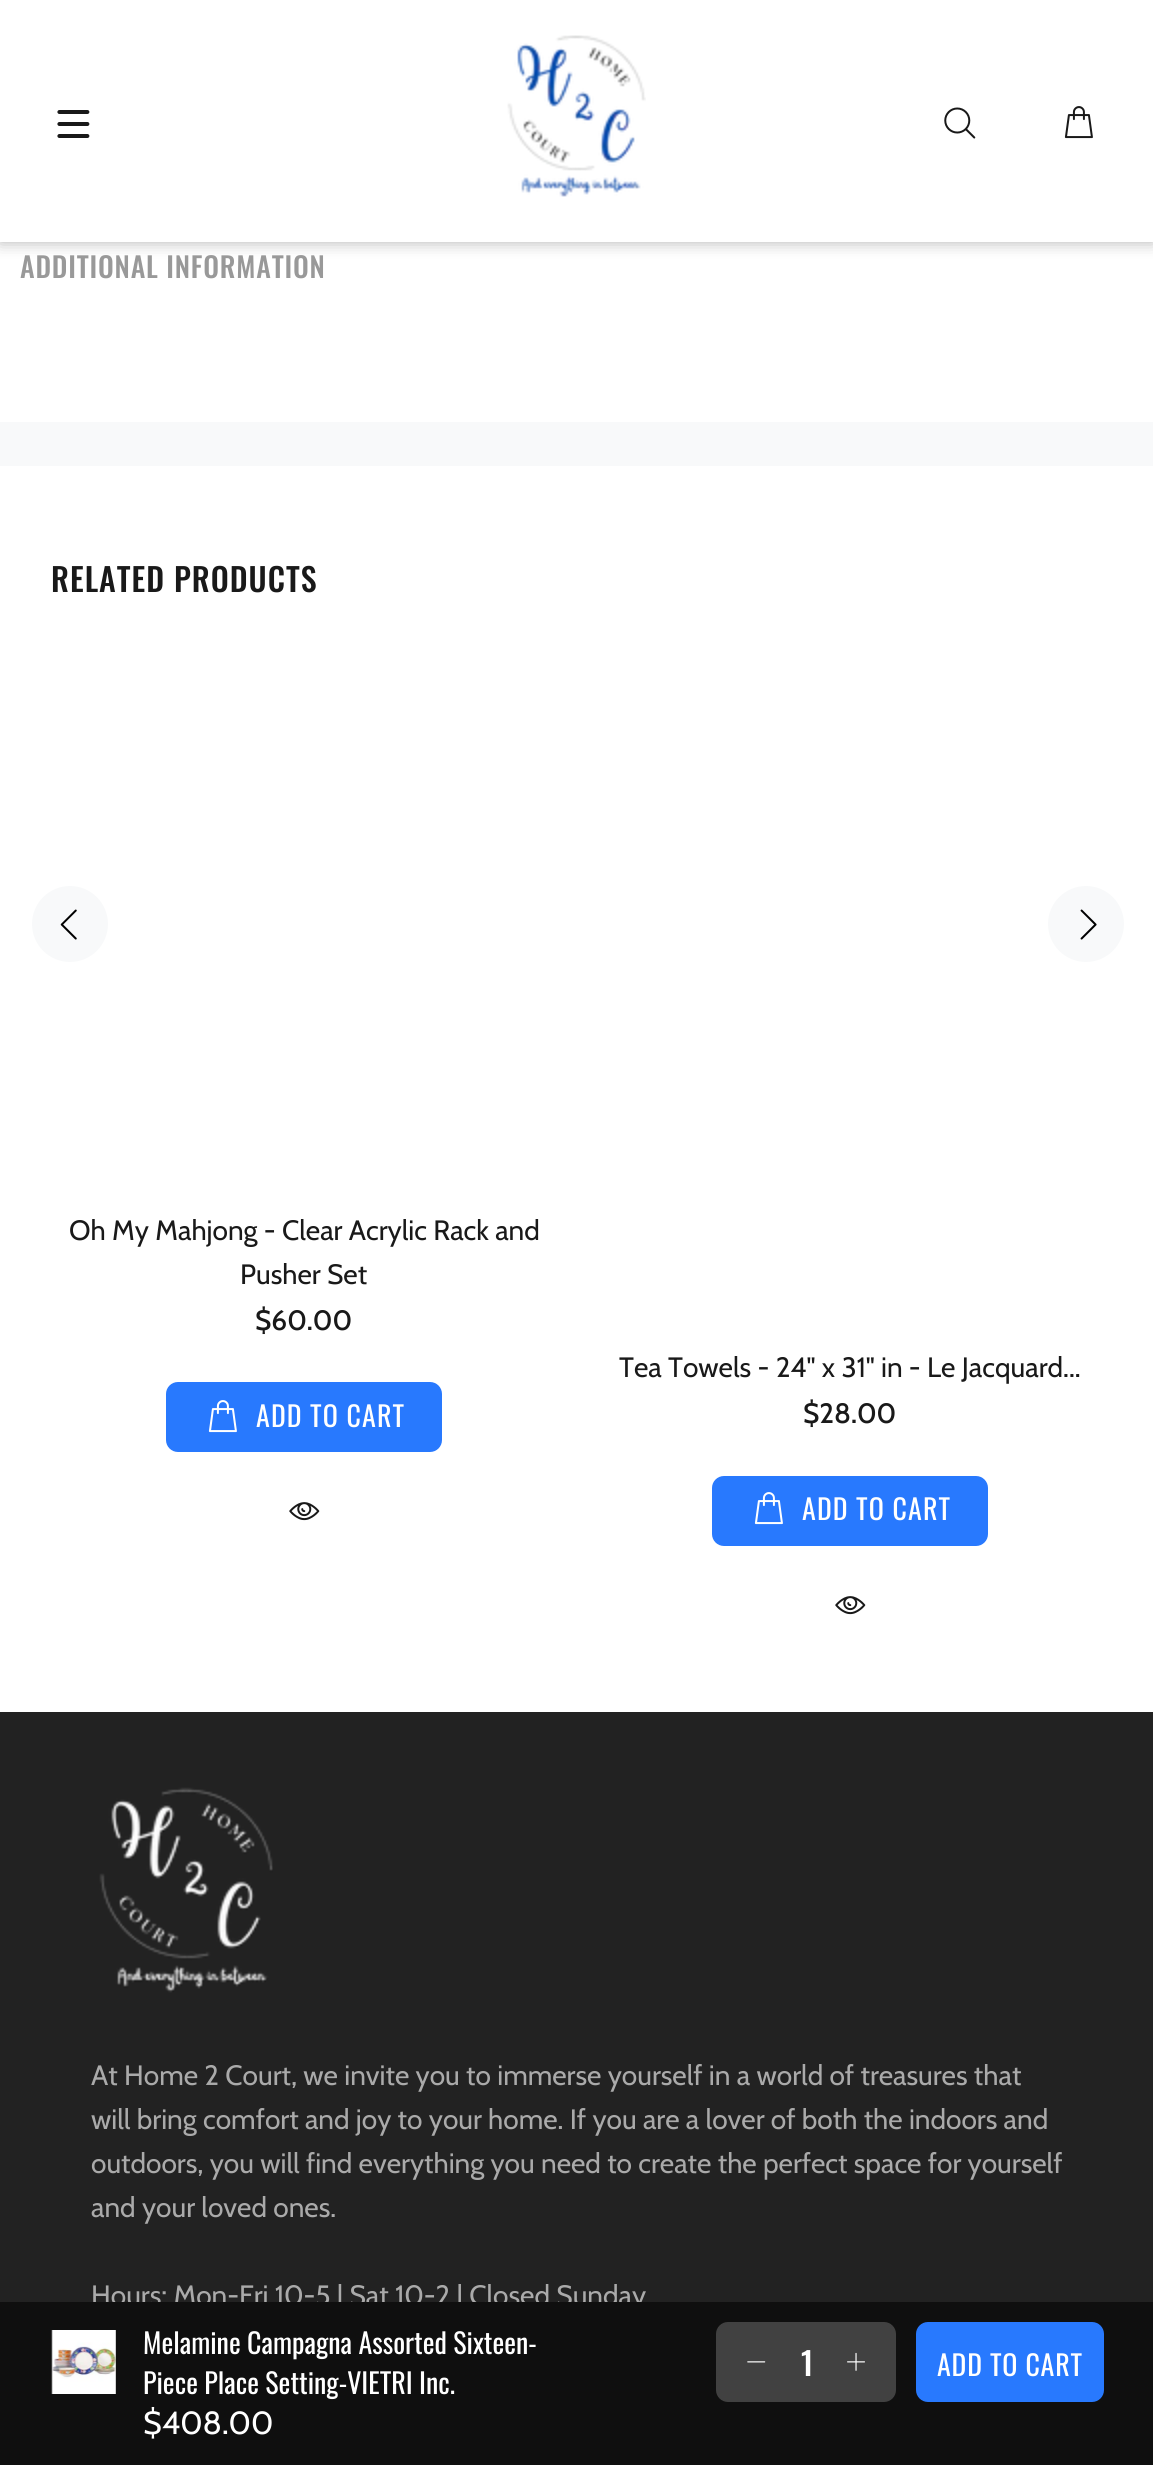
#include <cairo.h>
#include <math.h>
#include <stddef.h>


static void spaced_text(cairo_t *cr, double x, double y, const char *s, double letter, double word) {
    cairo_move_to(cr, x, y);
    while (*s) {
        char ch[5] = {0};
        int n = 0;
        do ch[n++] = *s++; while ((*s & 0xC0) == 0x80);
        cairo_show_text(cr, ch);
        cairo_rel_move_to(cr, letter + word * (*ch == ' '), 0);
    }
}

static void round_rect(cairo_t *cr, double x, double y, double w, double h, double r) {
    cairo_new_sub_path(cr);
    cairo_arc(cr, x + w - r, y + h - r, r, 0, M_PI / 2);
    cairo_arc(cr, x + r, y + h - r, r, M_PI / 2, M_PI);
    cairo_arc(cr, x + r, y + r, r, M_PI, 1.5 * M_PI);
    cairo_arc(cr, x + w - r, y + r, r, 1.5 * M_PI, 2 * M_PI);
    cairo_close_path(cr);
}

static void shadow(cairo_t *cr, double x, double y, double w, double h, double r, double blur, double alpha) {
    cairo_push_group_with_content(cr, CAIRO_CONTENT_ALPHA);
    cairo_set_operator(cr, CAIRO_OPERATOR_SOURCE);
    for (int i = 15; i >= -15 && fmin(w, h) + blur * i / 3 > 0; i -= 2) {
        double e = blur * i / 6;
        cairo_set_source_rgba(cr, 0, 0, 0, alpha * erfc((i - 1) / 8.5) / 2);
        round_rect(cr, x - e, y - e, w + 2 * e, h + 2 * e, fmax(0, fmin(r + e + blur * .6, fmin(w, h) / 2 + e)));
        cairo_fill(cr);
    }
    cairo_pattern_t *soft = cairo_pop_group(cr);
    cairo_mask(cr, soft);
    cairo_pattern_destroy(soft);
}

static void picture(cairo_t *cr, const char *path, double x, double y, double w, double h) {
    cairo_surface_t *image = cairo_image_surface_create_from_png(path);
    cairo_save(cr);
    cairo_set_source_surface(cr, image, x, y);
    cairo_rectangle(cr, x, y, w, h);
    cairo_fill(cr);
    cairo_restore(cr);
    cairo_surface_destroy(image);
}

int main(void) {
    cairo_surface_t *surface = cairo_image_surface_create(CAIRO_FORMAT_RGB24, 1153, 2465);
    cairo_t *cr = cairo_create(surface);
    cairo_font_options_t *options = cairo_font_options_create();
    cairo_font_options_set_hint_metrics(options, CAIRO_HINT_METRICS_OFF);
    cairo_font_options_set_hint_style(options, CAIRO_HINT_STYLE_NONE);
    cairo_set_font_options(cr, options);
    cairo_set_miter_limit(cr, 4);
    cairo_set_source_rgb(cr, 1, 1, 1);
    cairo_paint(cr);
    cairo_set_source_rgb(cr, 0, 0, 0);
    shadow(cr, 0, 0, 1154, 242, 0, 8, 0.3);
    cairo_set_source_rgb(cr, 1, 1, 1);
    cairo_rectangle(cr, 0, 0, 1153, 242);
    cairo_fill(cr);
    picture(cr, "img1.png", 57, 110, 33, 28);
    picture(cr, "img2.png", 507, 35, 139, 162);
    picture(cr, "img3.png", 944, 107, 32, 32);
    picture(cr, "img4.png", 1064, 106, 29, 33);
    cairo_select_font_face(cr, "Oswald Medium", CAIRO_FONT_SLANT_NORMAL, CAIRO_FONT_WEIGHT_NORMAL);
    cairo_set_font_size(cr, 28);
    cairo_set_source_rgb(cr, 0.6, 0.6, 0.6);
    spaced_text(cr, 20, 278, "ADDITIONAL INFORMATION", 0.8, 0);
    cairo_set_source_rgb(cr, 0.969, 0.973, 0.98);
    cairo_rectangle(cr, 0, 422, 1153, 44);
    cairo_fill(cr);
    cairo_set_font_size(cr, 32);
    cairo_set_source_rgb(cr, 0.098, 0.098, 0.098);
    spaced_text(cr, 51, 592, "RELATED PRODUCTS", 1, 0);
    cairo_set_source_rgb(cr, 0.969, 0.973, 0.98);
    cairo_new_path(cr);
    cairo_arc(cr, 70, 924, 38, 0, 2 * M_PI);
    cairo_fill(cr);
    picture(cr, "img5.png", 60, 909, 17, 31);
    cairo_arc(cr, 1086, 924, 38, 0, 2 * M_PI);
    cairo_fill(cr);
    picture(cr, "img6.png", 1080, 909, 17, 31);
    cairo_select_font_face(cr, "Cabin", CAIRO_FONT_SLANT_NORMAL, CAIRO_FONT_WEIGHT_NORMAL);
    cairo_set_font_size(cr, 28);
    cairo_set_source_rgb(cr, 0.098, 0.098, 0.098);
    cairo_move_to(cr, 69, 1240);
    cairo_show_text(cr, "Oh My Mahjong - Clear Acrylic Rack and");
    cairo_move_to(cr, 240, 1284);
    cairo_show_text(cr, "Pusher Set");
    cairo_select_font_face(cr, "Cabin Medium", CAIRO_FONT_SLANT_NORMAL, CAIRO_FONT_WEIGHT_NORMAL);
    cairo_move_to(cr, 255, 1330);
    cairo_show_text(cr, "$60.00");
    cairo_set_source_rgb(cr, 0.157, 0.475, 0.996);
    round_rect(cr, 166, 1382, 276, 70, 12);
    cairo_fill(cr);
    picture(cr, "img7.png", 208, 1400, 29, 33);
    cairo_select_font_face(cr, "Oswald", CAIRO_FONT_SLANT_NORMAL, CAIRO_FONT_WEIGHT_NORMAL);
    cairo_set_source_rgb(cr, 1, 1, 1);
    spaced_text(cr, 256, 1427, "ADD TO CART", 1.1, 0);
    picture(cr, "img8.png", 289, 1502, 31, 19);
    cairo_select_font_face(cr, "Cabin", CAIRO_FONT_SLANT_NORMAL, CAIRO_FONT_WEIGHT_NORMAL);
    cairo_set_source_rgb(cr, 0.098, 0.098, 0.098);
    cairo_move_to(cr, 619, 1377);
    cairo_show_text(cr, "Tea Towels - 24\" x 31\" in - Le Jacquard...");
    cairo_select_font_face(cr, "Cabin Medium", CAIRO_FONT_SLANT_NORMAL, CAIRO_FONT_WEIGHT_NORMAL);
    cairo_move_to(cr, 803, 1423);
    cairo_show_text(cr, "$28.00");
    cairo_set_source_rgb(cr, 0.157, 0.475, 0.996);
    round_rect(cr, 712, 1476, 276, 70, 12);
    cairo_fill(cr);
    picture(cr, "img7.png", 754, 1492, 29, 33);
    cairo_select_font_face(cr, "Oswald", CAIRO_FONT_SLANT_NORMAL, CAIRO_FONT_WEIGHT_NORMAL);
    cairo_set_source_rgb(cr, 1, 1, 1);
    spaced_text(cr, 802, 1520, "ADD TO CART", 1.1, 0);
    picture(cr, "img8.png", 835, 1596, 31, 19);
    cairo_set_source_rgb(cr, 0.133, 0.133, 0.133);
    cairo_rectangle(cr, 0, 1712, 1153, 590);
    cairo_fill(cr);
    cairo_select_font_face(cr, "Cabin", CAIRO_FONT_SLANT_NORMAL, CAIRO_FONT_WEIGHT_NORMAL);
    cairo_set_source_rgb(cr, 0.667, 0.667, 0.667);
    cairo_move_to(cr, 91, 2305);
    cairo_show_text(cr, "Hours: Mon-Fri 10-5 | Sat 10-2 | Closed Sunday");
    cairo_set_source_rgb(cr, 0.059, 0.059, 0.059);
    cairo_rectangle(cr, 0, 2302, 1153, 163);
    cairo_fill(cr);
    picture(cr, "img9.png", 51, 2330, 65, 64);
    cairo_select_font_face(cr, "Oswald", CAIRO_FONT_SLANT_NORMAL, CAIRO_FONT_WEIGHT_NORMAL);
    cairo_set_source_rgb(cr, 1, 1, 1);
    cairo_move_to(cr, 143, 2354);
    cairo_show_text(cr, "Melamine Campagna Assorted Sixteen-");
    cairo_move_to(cr, 143, 2394);
    cairo_show_text(cr, "Piece Place Setting-VIETRI Inc.");
    cairo_select_font_face(cr, "Cabin", CAIRO_FONT_SLANT_NORMAL, CAIRO_FONT_WEIGHT_NORMAL);
    cairo_set_font_size(cr, 32);
    cairo_move_to(cr, 143, 2434);
    cairo_show_text(cr, "$408.00");
    cairo_set_source_rgb(cr, 0.255, 0.255, 0.255);
    round_rect(cr, 716, 2322, 180, 80, 12);
    cairo_fill(cr);
    picture(cr, "img10.png", 747, 2361, 19, 2);
    cairo_select_font_face(cr, "Oswald Medium", CAIRO_FONT_SLANT_NORMAL, CAIRO_FONT_WEIGHT_NORMAL);
    cairo_set_source_rgb(cr, 1, 1, 1);
    cairo_move_to(cr, 801, 2376);
    cairo_show_text(cr, "1");
    picture(cr, "img11.png", 847, 2352, 18, 19);
    cairo_set_source_rgb(cr, 0.157, 0.475, 0.996);
    round_rect(cr, 916, 2322, 188, 80, 12);
    cairo_fill(cr);
    cairo_select_font_face(cr, "Oswald", CAIRO_FONT_SLANT_NORMAL, CAIRO_FONT_WEIGHT_NORMAL);
    cairo_set_font_size(cr, 28);
    cairo_set_source_rgb(cr, 1, 1, 1);
    spaced_text(cr, 937, 2376, "ADD TO CART", 0.8, 0);
    picture(cr, "img12.png", 99, 1787, 174, 206);
    cairo_select_font_face(cr, "Cabin", CAIRO_FONT_SLANT_NORMAL, CAIRO_FONT_WEIGHT_NORMAL);
    cairo_set_source_rgb(cr, 0.667, 0.667, 0.667);
    cairo_move_to(cr, 91, 2085);
    cairo_show_text(cr, "At Home 2 Court, we invite you to immerse yourself in a world of treasures that");
    cairo_move_to(cr, 91, 2129);
    cairo_show_text(cr, "will bring comfort and joy to your home. If you are a lover of both the indoors and");
    cairo_move_to(cr, 91, 2173);
    cairo_show_text(cr, "outdoors, you will find everything you need to create the perfect space for yourself");
    cairo_move_to(cr, 91, 2217);
    cairo_show_text(cr, "and your loved ones.");
    cairo_surface_write_to_png(surface, "page.png");
    cairo_font_options_destroy(options);
    cairo_destroy(cr);
    cairo_surface_destroy(surface);
    return 0;
}
